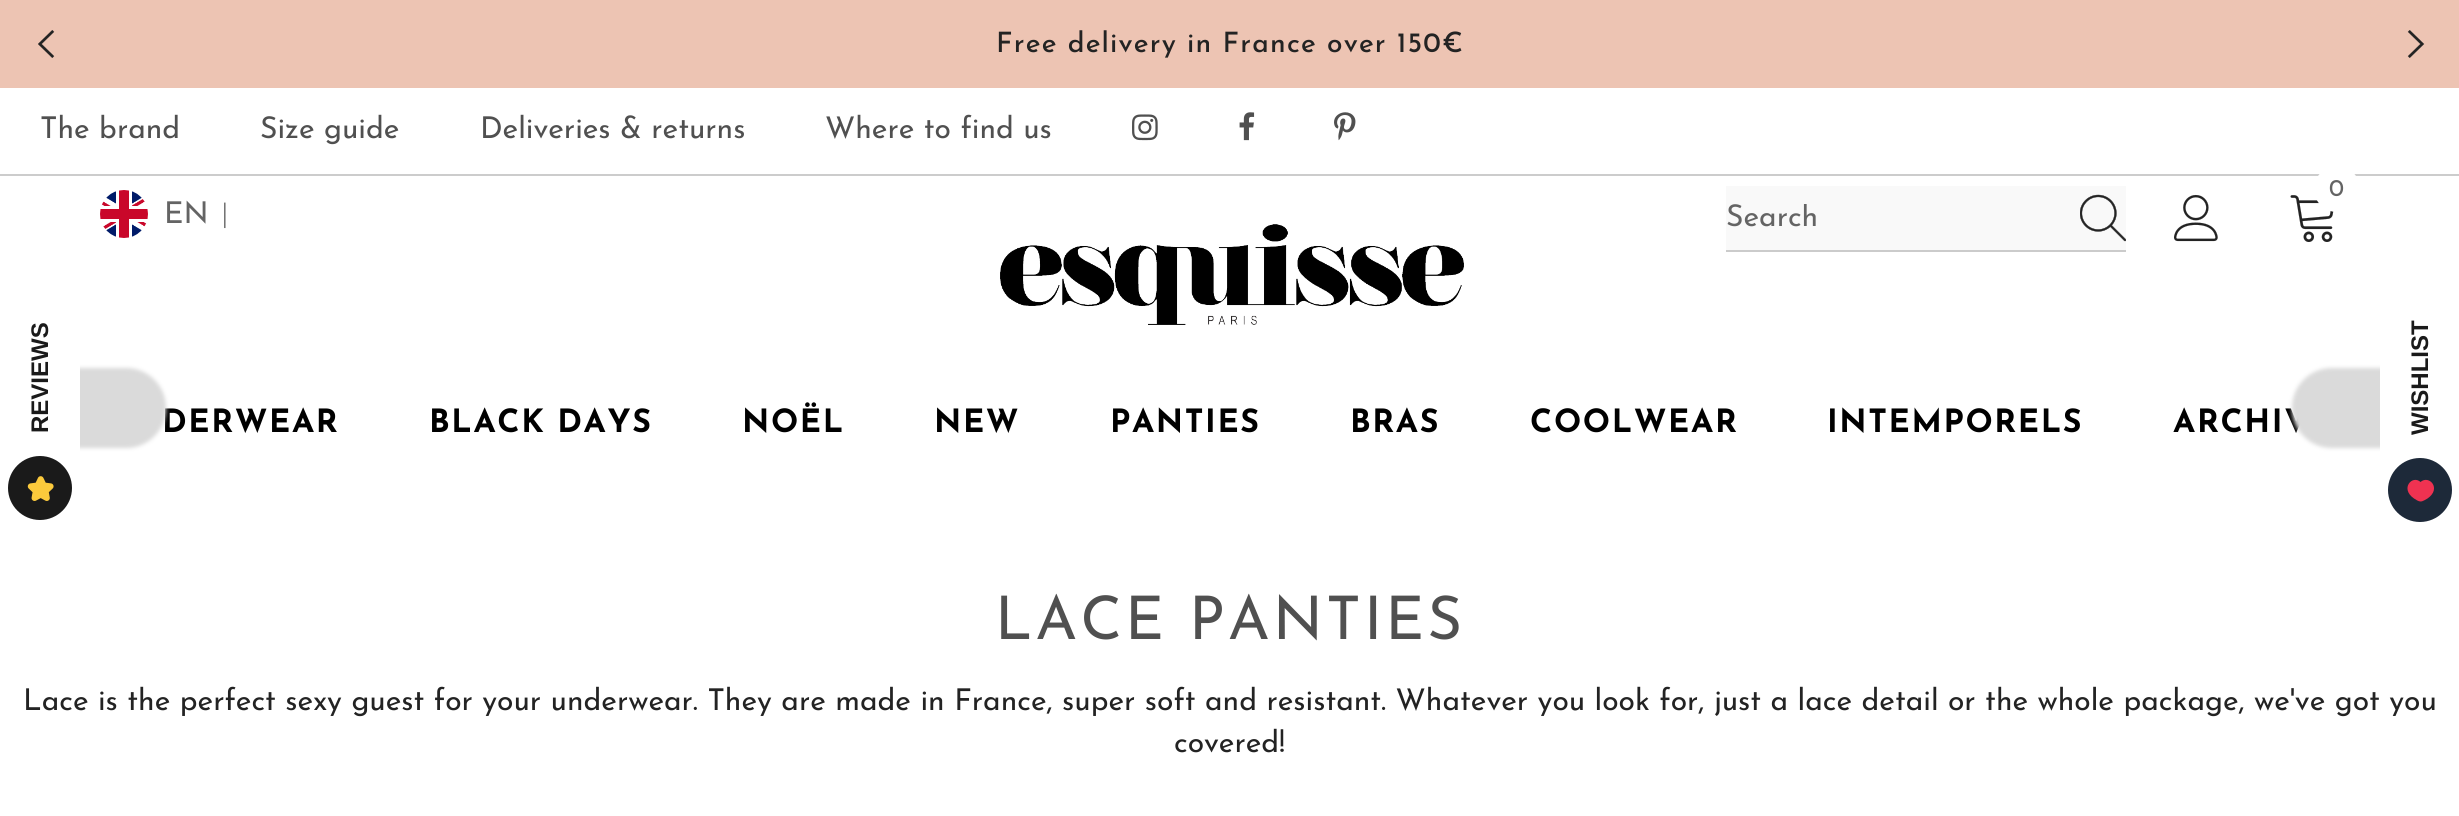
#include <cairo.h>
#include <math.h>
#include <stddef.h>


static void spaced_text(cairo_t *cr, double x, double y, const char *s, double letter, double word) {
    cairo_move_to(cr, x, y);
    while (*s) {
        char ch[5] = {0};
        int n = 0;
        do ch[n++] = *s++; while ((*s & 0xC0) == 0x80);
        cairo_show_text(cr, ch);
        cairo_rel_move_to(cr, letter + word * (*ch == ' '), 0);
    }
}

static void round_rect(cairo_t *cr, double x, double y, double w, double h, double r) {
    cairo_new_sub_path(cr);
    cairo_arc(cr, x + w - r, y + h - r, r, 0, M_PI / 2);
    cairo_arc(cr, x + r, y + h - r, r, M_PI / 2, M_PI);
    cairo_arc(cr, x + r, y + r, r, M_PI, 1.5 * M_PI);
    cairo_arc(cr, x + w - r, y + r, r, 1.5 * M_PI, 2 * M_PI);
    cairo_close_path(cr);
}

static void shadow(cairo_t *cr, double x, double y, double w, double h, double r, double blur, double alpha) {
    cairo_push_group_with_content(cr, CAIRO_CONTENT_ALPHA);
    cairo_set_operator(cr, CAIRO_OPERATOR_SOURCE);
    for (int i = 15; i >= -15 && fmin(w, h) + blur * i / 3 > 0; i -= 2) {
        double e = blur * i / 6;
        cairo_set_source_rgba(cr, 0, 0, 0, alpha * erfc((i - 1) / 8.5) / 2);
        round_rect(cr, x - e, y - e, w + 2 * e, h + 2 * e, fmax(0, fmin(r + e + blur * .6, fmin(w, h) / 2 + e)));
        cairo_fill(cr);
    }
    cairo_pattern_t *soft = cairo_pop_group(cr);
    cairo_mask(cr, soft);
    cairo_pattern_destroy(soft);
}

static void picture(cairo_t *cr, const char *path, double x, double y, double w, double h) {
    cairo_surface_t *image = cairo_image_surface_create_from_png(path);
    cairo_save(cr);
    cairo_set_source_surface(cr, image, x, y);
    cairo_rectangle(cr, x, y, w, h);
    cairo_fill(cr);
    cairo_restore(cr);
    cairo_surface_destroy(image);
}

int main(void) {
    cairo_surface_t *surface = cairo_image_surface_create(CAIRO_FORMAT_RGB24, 2459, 816);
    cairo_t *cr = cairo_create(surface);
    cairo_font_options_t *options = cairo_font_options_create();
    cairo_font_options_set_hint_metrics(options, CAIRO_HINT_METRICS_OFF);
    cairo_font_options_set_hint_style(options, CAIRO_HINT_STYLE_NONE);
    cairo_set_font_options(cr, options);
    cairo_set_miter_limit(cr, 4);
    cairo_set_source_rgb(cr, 1, 1, 1);
    cairo_paint(cr);
    cairo_set_source_rgb(cr, 0.929, 0.769, 0.702);
    cairo_rectangle(cr, 0, 0, 2459, 88);
    cairo_fill(cr);
    picture(cr, "img1.png", 38, 30, 17, 28);
    cairo_select_font_face(cr, "Josefin Sans Medium", CAIRO_FONT_SLANT_NORMAL, CAIRO_FONT_WEIGHT_NORMAL);
    cairo_set_font_size(cr, 28);
    cairo_set_source_rgb(cr, 0.137, 0.137, 0.137);
    spaced_text(cr, 996, 52, "Free delivery in France over 150€", 1.2, 0);
    picture(cr, "img2.png", 2407, 30, 18, 28);
    cairo_set_source_rgb(cr, 0.8, 0.8, 0.8);
    cairo_rectangle(cr, 0, 174, 2459, 2);
    cairo_fill(cr);
    cairo_select_font_face(cr, "Josefin Sans", CAIRO_FONT_SLANT_NORMAL, CAIRO_FONT_WEIGHT_NORMAL);
    cairo_set_font_size(cr, 30);
    cairo_set_source_rgb(cr, 0.314, 0.314, 0.314);
    cairo_move_to(cr, 40, 138);
    cairo_show_text(cr, "The brand");
    cairo_move_to(cr, 260, 138);
    cairo_show_text(cr, "Size guide");
    cairo_move_to(cr, 480, 138);
    cairo_show_text(cr, "Deliveries & returns");
    cairo_move_to(cr, 825, 138);
    cairo_show_text(cr, "Where to find us");
    picture(cr, "img3.png", 1132, 114, 26, 27);
    picture(cr, "img4.png", 1239, 112, 16, 29);
    picture(cr, "img5.png", 1334, 112, 22, 29);
    picture(cr, "img6.png", 100, 190, 48, 48);
    cairo_set_source_rgb(cr, 0.392, 0.392, 0.392);
    cairo_move_to(cr, 164, 223);
    cairo_show_text(cr, "EN");
    cairo_select_font_face(cr, "Liberation Serif", CAIRO_FONT_SLANT_NORMAL, CAIRO_FONT_WEIGHT_NORMAL);
    cairo_set_font_size(cr, 28);
    cairo_move_to(cr, 222, 222);
    cairo_show_text(cr, "|");
    picture(cr, "img7.png", 2290, 195, 44, 47);
    cairo_set_source_rgb(cr, 1, 1, 1);
    cairo_arc(cr, 2337, 189, 23, 0, 2 * M_PI);
    cairo_fill(cr);
    cairo_select_font_face(cr, "Josefin Sans", CAIRO_FONT_SLANT_NORMAL, CAIRO_FONT_WEIGHT_NORMAL);
    cairo_set_font_size(cr, 24);
    cairo_set_source_rgb(cr, 0.392, 0.392, 0.392);
    cairo_move_to(cr, 2329, 196);
    cairo_show_text(cr, "0");
    cairo_set_source_rgb(cr, 0.973, 0.973, 0.973);
    cairo_rectangle(cr, 1726, 186, 400, 64);
    cairo_fill(cr);
    cairo_set_source_rgb(cr, 0.796, 0.796, 0.796);
    cairo_rectangle(cr, 1726, 250, 400, 2);
    cairo_fill(cr);
    cairo_save(cr);
    cairo_rectangle(cr, 1726, 204, 392, 30);
    cairo_clip(cr);
    cairo_set_font_size(cr, 30);
    cairo_set_source_rgb(cr, 0.392, 0.392, 0.392);
    cairo_move_to(cr, 1726, 226);
    cairo_show_text(cr, "Search");
    cairo_restore(cr);
    picture(cr, "img8.png", 2080, 194, 46, 48);
    picture(cr, "img9.png", 2174, 194, 44, 48);
    picture(cr, "img10.png", 1000, 224, 464, 101);
    cairo_select_font_face(cr, "Josefin Sans", CAIRO_FONT_SLANT_NORMAL, CAIRO_FONT_WEIGHT_BOLD);
    cairo_set_font_size(cr, 32);
    cairo_set_source_rgb(cr, 0, 0, 0);
    spaced_text(cr, 162, 432, "DERWEAR", 1.6, 0);
    spaced_text(cr, 429, 432, "BLACK DAYS", 1.6, 0);
    spaced_text(cr, 742, 432, "NOËL", 1.6, 0);
    spaced_text(cr, 934, 432, "NEW", 1.6, 0);
    spaced_text(cr, 1110, 432, "PANTIES", 1.6, 0);
    spaced_text(cr, 1350, 432, "BRAS", 1.6, 0);
    spaced_text(cr, 1530, 432, "COOLWEAR", 1.6, 0);
    spaced_text(cr, 1827, 432, "INTEMPORELS", 1.6, 0);
    spaced_text(cr, 2173, 432, "ARCHIV", 1.6, 0);
    cairo_save(cr);
    cairo_rectangle(cr, 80, 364, 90, 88);
    cairo_clip(cr);
    cairo_set_source_rgb(cr, 0.855, 0.855, 0.855);
    shadow(cr, -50, 368, 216, 80, 44, 2, 1);
    cairo_restore(cr);
    cairo_select_font_face(cr, "Liberation Sans", CAIRO_FONT_SLANT_NORMAL, CAIRO_FONT_WEIGHT_BOLD);
    cairo_set_font_size(cr, 24);
    cairo_set_source_rgb(cr, 0.102, 0.102, 0.102);
    cairo_save(cr);
    cairo_translate(cr, 48, 433);
    cairo_rotate(cr, -90 * M_PI / 180);
    cairo_move_to(cr, 0, 0);
    cairo_show_text(cr, "REVIEWS");
    cairo_restore(cr);
    cairo_new_path(cr);
    cairo_arc(cr, 40, 488, 32, 0, 2 * M_PI);
    cairo_fill(cr);
    picture(cr, "img11.png", 27, 476, 27, 25);
    cairo_save(cr);
    cairo_rectangle(cr, 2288, 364, 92, 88);
    cairo_clip(cr);
    cairo_set_source_rgb(cr, 0.855, 0.855, 0.855);
    shadow(cr, 2292, 368, 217, 80, 44, 2, 1);
    cairo_restore(cr);
    cairo_save(cr);
    cairo_translate(cr, 2428, 435);
    cairo_rotate(cr, -90 * M_PI / 180);
    cairo_move_to(cr, 0, 0);
    cairo_show_text(cr, "WISHLIST");
    cairo_restore(cr);
    cairo_set_source_rgb(cr, 0.114, 0.161, 0.224);
    cairo_new_path(cr);
    cairo_arc(cr, 2420, 490, 32, 0, 2 * M_PI);
    cairo_fill(cr);
    cairo_set_source_rgb(cr, 0.937, 0.196, 0.318);
    cairo_new_path(cr);
    cairo_move_to(cr, 2420.5, 482);
    cairo_curve_to(cr, 2412.5, 474.5, 2399.5, 488.5, 2414, 498.5);
    cairo_curve_to(cr, 2415.5, 499.5, 2418.5, 501.5, 2420.5, 501.5);
    cairo_curve_to(cr, 2423, 501.5, 2425.5, 499.5, 2427.5, 498.5);
    cairo_curve_to(cr, 2442, 488.5, 2429, 474.5, 2420.5, 482);
    cairo_close_path(cr);
    cairo_fill(cr);
    cairo_select_font_face(cr, "Josefin Sans", CAIRO_FONT_SLANT_NORMAL, CAIRO_FONT_WEIGHT_NORMAL);
    cairo_set_font_size(cr, 60);
    cairo_set_source_rgb(cr, 0.314, 0.314, 0.314);
    spaced_text(cr, 995, 639, "LACE PANTIES", 3, 0);
    cairo_set_font_size(cr, 30);
    cairo_set_source_rgb(cr, 0.137, 0.137, 0.137);
    cairo_move_to(cr, 23, 710);
    cairo_show_text(cr, "Lace is the perfect sexy guest for your underwear. They are made in France, super soft and resistant. Whatever you look for, just a lace detail or the whole package, we've got you");
    cairo_move_to(cr, 1174, 752);
    cairo_show_text(cr, "covered!");
    cairo_surface_write_to_png(surface, "page.png");
    cairo_font_options_destroy(options);
    cairo_destroy(cr);
    cairo_surface_destroy(surface);
    return 0;
}
